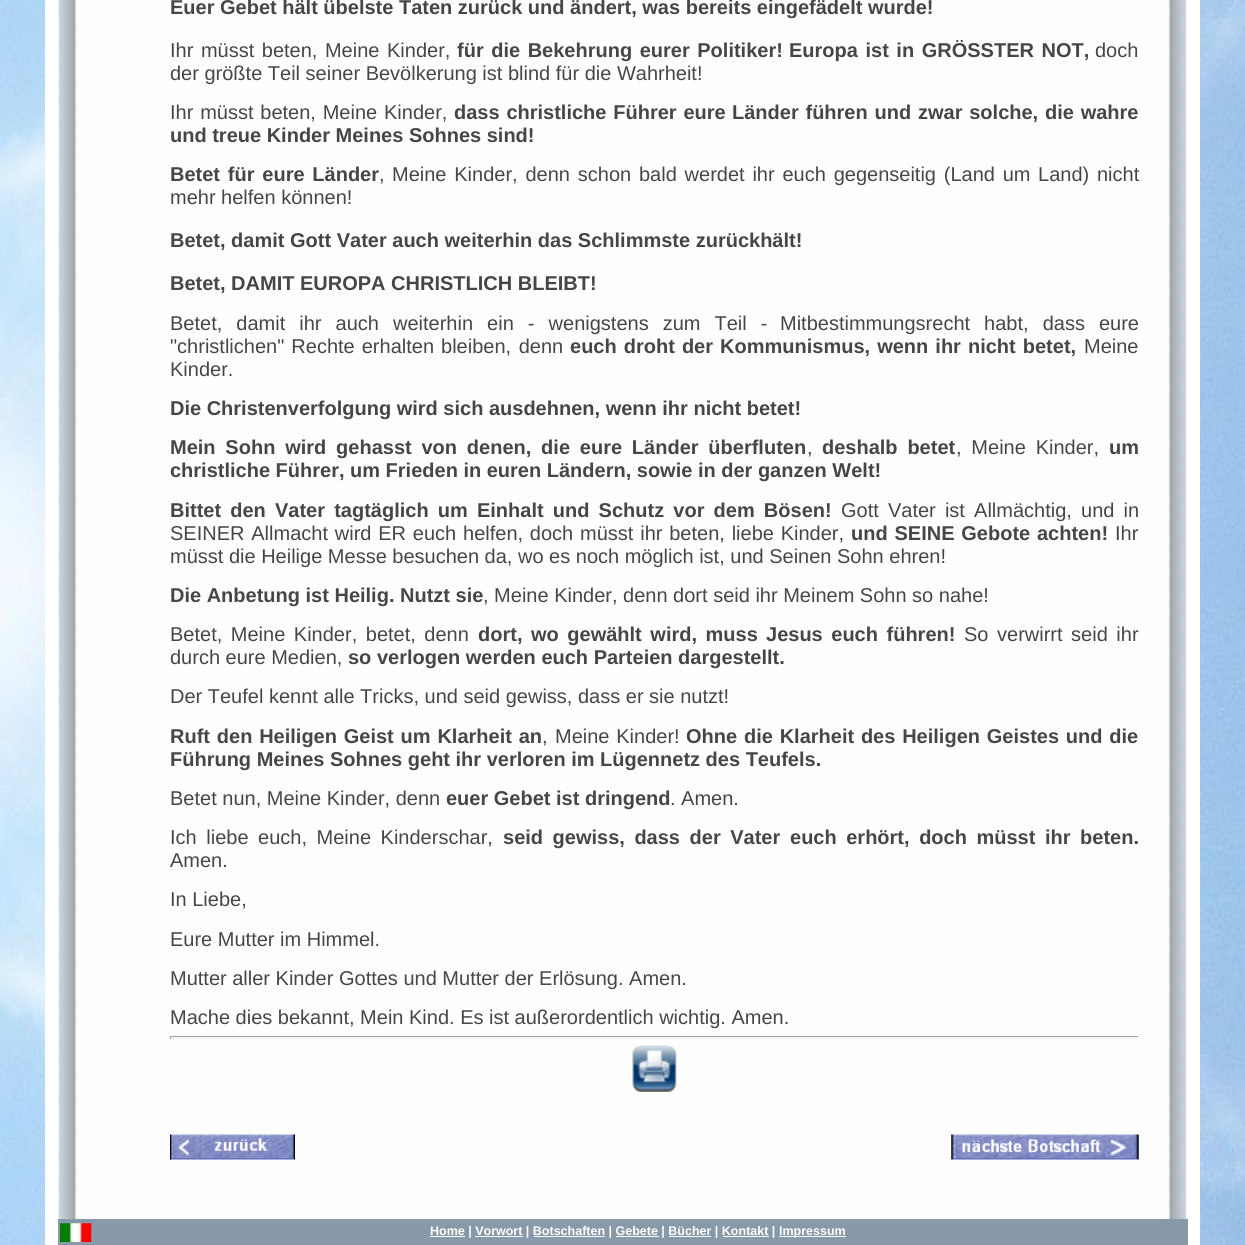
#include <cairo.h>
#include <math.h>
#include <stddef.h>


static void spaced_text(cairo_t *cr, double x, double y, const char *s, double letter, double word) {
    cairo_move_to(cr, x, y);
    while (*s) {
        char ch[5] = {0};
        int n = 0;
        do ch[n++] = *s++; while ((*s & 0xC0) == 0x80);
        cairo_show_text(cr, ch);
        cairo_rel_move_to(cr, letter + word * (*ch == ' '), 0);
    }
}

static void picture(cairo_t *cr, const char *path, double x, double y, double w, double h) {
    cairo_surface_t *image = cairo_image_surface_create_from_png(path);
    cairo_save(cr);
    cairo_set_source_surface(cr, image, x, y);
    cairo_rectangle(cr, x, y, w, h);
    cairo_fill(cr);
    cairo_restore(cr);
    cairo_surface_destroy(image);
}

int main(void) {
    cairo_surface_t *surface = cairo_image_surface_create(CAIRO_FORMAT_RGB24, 1245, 1245);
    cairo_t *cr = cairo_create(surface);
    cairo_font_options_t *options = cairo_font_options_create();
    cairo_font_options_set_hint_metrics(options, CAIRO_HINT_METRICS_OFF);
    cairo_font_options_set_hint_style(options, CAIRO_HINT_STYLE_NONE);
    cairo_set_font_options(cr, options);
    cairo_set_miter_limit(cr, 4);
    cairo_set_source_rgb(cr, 1, 1, 1);
    cairo_paint(cr);
    picture(cr, "img1.png", 0, 0, 1245, 1245);
    cairo_set_source_rgb(cr, 1, 1, 1);
    cairo_rectangle(cr, 45, 0, 1155, 1245);
    cairo_fill(cr);
    picture(cr, "img2.png", 58, 0, 1129, 1219);
    cairo_select_font_face(cr, "Liberation Sans", CAIRO_FONT_SLANT_NORMAL, CAIRO_FONT_WEIGHT_BOLD);
    cairo_set_font_size(cr, 20);
    cairo_set_source_rgb(cr, 0.275, 0.275, 0.275);
    cairo_move_to(cr, 170, 14);
    cairo_show_text(cr, "Euer Gebet hält übelste Taten zurück und ändert, was bereits eingefädelt wurde!");
    cairo_select_font_face(cr, "Liberation Sans", CAIRO_FONT_SLANT_NORMAL, CAIRO_FONT_WEIGHT_NORMAL);
    spaced_text(cr, 170, 57, "Ihr müsst beten, Meine Kinder,", 0, 2);
    cairo_select_font_face(cr, "Liberation Sans", CAIRO_FONT_SLANT_NORMAL, CAIRO_FONT_WEIGHT_BOLD);
    spaced_text(cr, 457, 57, "für die Bekehrung eurer Politiker!", 0, 2);
    spaced_text(cr, 789, 57, "Europa ist in GRÖSSTER NOT,", 0, 2);
    cairo_select_font_face(cr, "Liberation Sans", CAIRO_FONT_SLANT_NORMAL, CAIRO_FONT_WEIGHT_NORMAL);
    cairo_move_to(cr, 1095, 57);
    cairo_show_text(cr, "doch");
    cairo_move_to(cr, 170, 80);
    cairo_show_text(cr, "der größte Teil seiner Bevölkerung ist blind für die Wahrheit!");
    spaced_text(cr, 170, 119, "Ihr müsst beten, Meine Kinder,", 0, 1.25);
    cairo_select_font_face(cr, "Liberation Sans", CAIRO_FONT_SLANT_NORMAL, CAIRO_FONT_WEIGHT_BOLD);
    spaced_text(cr, 454, 119, "dass christliche Führer eure", 0, 1.25);
    spaced_text(cr, 732, 119, "Länder führen und zwar solche, die wahre", 0, 1.25);
    cairo_move_to(cr, 170, 142);
    cairo_show_text(cr, "und treue Kinder Meines Sohnes sind!");
    spaced_text(cr, 170, 181, "Betet für eure Länder", 0, 2.25);
    cairo_select_font_face(cr, "Liberation Sans", CAIRO_FONT_SLANT_NORMAL, CAIRO_FONT_WEIGHT_NORMAL);
    cairo_move_to(cr, 379, 181);
    cairo_show_text(cr, ",");
    spaced_text(cr, 392, 181, "Meine Kinder, denn schon bald werdet ihr euch gegenseitig (Land um", 0, 2.25);
    spaced_text(cr, 1038, 181, "Land) nicht", 0, 2.25);
    cairo_move_to(cr, 170, 204);
    cairo_show_text(cr, "mehr helfen können!");
    cairo_select_font_face(cr, "Liberation Sans", CAIRO_FONT_SLANT_NORMAL, CAIRO_FONT_WEIGHT_BOLD);
    cairo_move_to(cr, 170, 247);
    cairo_show_text(cr, "Betet, damit Gott Vater auch weiterhin das Schlimmste zurückhält!");
    cairo_move_to(cr, 170, 290);
    cairo_show_text(cr, "Betet, DAMIT EUROPA CHRISTLICH BLEIBT!");
    cairo_select_font_face(cr, "Liberation Sans", CAIRO_FONT_SLANT_NORMAL, CAIRO_FONT_WEIGHT_NORMAL);
    spaced_text(cr, 170, 330, "Betet, damit ihr auch weiterhin ein - wenigstens zum Teil -", 0, 8.5);
    spaced_text(cr, 780, 330, "Mitbestimmungsrecht habt, dass eure", 0, 8.5);
    spaced_text(cr, 170, 353, "\"christlichen\" Rechte erhalten", 0, 1.5);
    spaced_text(cr, 441, 353, "bleiben, denn", 0, 2);
    cairo_select_font_face(cr, "Liberation Sans", CAIRO_FONT_SLANT_NORMAL, CAIRO_FONT_WEIGHT_BOLD);
    spaced_text(cr, 570, 353, "euch droht der Kommunismus, wenn ihr nicht betet,", 0, 1.5);
    cairo_select_font_face(cr, "Liberation Sans", CAIRO_FONT_SLANT_NORMAL, CAIRO_FONT_WEIGHT_NORMAL);
    cairo_move_to(cr, 1084, 353);
    cairo_show_text(cr, "Meine");
    cairo_move_to(cr, 170, 376);
    cairo_show_text(cr, "Kinder.");
    cairo_select_font_face(cr, "Liberation Sans", CAIRO_FONT_SLANT_NORMAL, CAIRO_FONT_WEIGHT_BOLD);
    cairo_move_to(cr, 170, 415);
    cairo_show_text(cr, "Die Christenverfolgung wird sich ausdehnen, wenn ihr nicht betet!");
    spaced_text(cr, 170, 454, "Mein Sohn wird gehasst von denen, die eure Länder überfluten", 0, 4.25);
    cairo_select_font_face(cr, "Liberation Sans", CAIRO_FONT_SLANT_NORMAL, CAIRO_FONT_WEIGHT_NORMAL);
    cairo_move_to(cr, 807, 454);
    cairo_show_text(cr, ",");
    cairo_select_font_face(cr, "Liberation Sans", CAIRO_FONT_SLANT_NORMAL, CAIRO_FONT_WEIGHT_BOLD);
    spaced_text(cr, 822, 454, "deshalb betet", 0, 4.25);
    cairo_select_font_face(cr, "Liberation Sans", CAIRO_FONT_SLANT_NORMAL, CAIRO_FONT_WEIGHT_NORMAL);
    spaced_text(cr, 956, 454, ", Meine Kinder,", 0, 4.25);
    cairo_select_font_face(cr, "Liberation Sans", CAIRO_FONT_SLANT_NORMAL, CAIRO_FONT_WEIGHT_BOLD);
    cairo_move_to(cr, 1109, 454);
    cairo_show_text(cr, "um");
    cairo_move_to(cr, 170, 477);
    cairo_show_text(cr, "christliche Führer, um Frieden in euren Ländern, sowie in der ganzen Welt!");
    spaced_text(cr, 170, 517, "Bittet den Vater tagtäglich um Einhalt und Schutz vor dem Bösen!", 0, 3.6);
    cairo_select_font_face(cr, "Liberation Sans", CAIRO_FONT_SLANT_NORMAL, CAIRO_FONT_WEIGHT_NORMAL);
    spaced_text(cr, 841, 517, "Gott Vater ist Allmächtig, und in", 0, 3.6);
    spaced_text(cr, 170, 540, "SEINER Allmacht wird ER euch", 0, 1.25);
    spaced_text(cr, 463, 540, "helfen, doch müsst ihr beten, liebe Kinder,", 0, 1.25);
    cairo_select_font_face(cr, "Liberation Sans", CAIRO_FONT_SLANT_NORMAL, CAIRO_FONT_WEIGHT_BOLD);
    spaced_text(cr, 851, 540, "und SEINE Gebote", 0, 1.25);
    cairo_move_to(cr, 1037, 540);
    cairo_show_text(cr, "achten!");
    cairo_select_font_face(cr, "Liberation Sans", CAIRO_FONT_SLANT_NORMAL, CAIRO_FONT_WEIGHT_NORMAL);
    cairo_move_to(cr, 1115, 540);
    cairo_show_text(cr, "Ihr");
    cairo_move_to(cr, 170, 563);
    cairo_show_text(cr, "müsst die Heilige Messe besuchen da, wo es noch möglich ist, und Seinen Sohn ehren!");
    cairo_select_font_face(cr, "Liberation Sans", CAIRO_FONT_SLANT_NORMAL, CAIRO_FONT_WEIGHT_BOLD);
    cairo_move_to(cr, 170, 602);
    cairo_show_text(cr, "Die Anbetung ist Heilig. Nutzt sie");
    cairo_select_font_face(cr, "Liberation Sans", CAIRO_FONT_SLANT_NORMAL, CAIRO_FONT_WEIGHT_NORMAL);
    cairo_move_to(cr, 483, 602);
    cairo_show_text(cr, ", Meine Kinder, denn dort seid ihr Meinem Sohn so nahe!");
    spaced_text(cr, 170, 641, "Betet, Meine Kinder, betet, denn", 0, 3);
    cairo_select_font_face(cr, "Liberation Sans", CAIRO_FONT_SLANT_NORMAL, CAIRO_FONT_WEIGHT_BOLD);
    spaced_text(cr, 478, 641, "dort, wo gewählt wird, muss", 0, 3);
    spaced_text(cr, 766, 641, "Jesus euch führen!", 0, 3);
    cairo_select_font_face(cr, "Liberation Sans", CAIRO_FONT_SLANT_NORMAL, CAIRO_FONT_WEIGHT_NORMAL);
    spaced_text(cr, 964, 641, "So verwirrt seid ihr", 0, 3);
    cairo_move_to(cr, 170, 664);
    cairo_show_text(cr, "durch eure Medien,");
    cairo_select_font_face(cr, "Liberation Sans", CAIRO_FONT_SLANT_NORMAL, CAIRO_FONT_WEIGHT_BOLD);
    cairo_move_to(cr, 348, 664);
    cairo_show_text(cr, "so verlogen werden euch Parteien dargestellt.");
    cairo_select_font_face(cr, "Liberation Sans", CAIRO_FONT_SLANT_NORMAL, CAIRO_FONT_WEIGHT_NORMAL);
    cairo_move_to(cr, 170, 703);
    cairo_show_text(cr, "Der Teufel kennt alle Tricks, und seid gewiss, dass er sie nutzt!");
    cairo_select_font_face(cr, "Liberation Sans", CAIRO_FONT_SLANT_NORMAL, CAIRO_FONT_WEIGHT_BOLD);
    spaced_text(cr, 170, 743, "Ruft den Heiligen Geist um Klarheit an", 0, 1.25);
    cairo_select_font_face(cr, "Liberation Sans", CAIRO_FONT_SLANT_NORMAL, CAIRO_FONT_WEIGHT_NORMAL);
    cairo_move_to(cr, 542, 743);
    cairo_show_text(cr, ",");
    spaced_text(cr, 555, 743, "Meine Kinder!", 0, 1.25);
    cairo_select_font_face(cr, "Liberation Sans", CAIRO_FONT_SLANT_NORMAL, CAIRO_FONT_WEIGHT_BOLD);
    spaced_text(cr, 686, 743, "Ohne die Klarheit des Heiligen Geistes und die", 0, 1.25);
    cairo_move_to(cr, 170, 766);
    cairo_show_text(cr, "Führung Meines Sohnes geht ihr verloren im Lügennetz des Teufels.");
    cairo_select_font_face(cr, "Liberation Sans", CAIRO_FONT_SLANT_NORMAL, CAIRO_FONT_WEIGHT_NORMAL);
    cairo_move_to(cr, 170, 805);
    cairo_show_text(cr, "Betet nun, Meine Kinder, denn");
    cairo_select_font_face(cr, "Liberation Sans", CAIRO_FONT_SLANT_NORMAL, CAIRO_FONT_WEIGHT_BOLD);
    cairo_move_to(cr, 446, 805);
    cairo_show_text(cr, "euer Gebet ist dringend");
    cairo_select_font_face(cr, "Liberation Sans", CAIRO_FONT_SLANT_NORMAL, CAIRO_FONT_WEIGHT_NORMAL);
    cairo_move_to(cr, 670, 805);
    cairo_show_text(cr, ". Amen.");
    spaced_text(cr, 170, 844, "Ich liebe euch, Meine Kinderschar,", 0, 4);
    cairo_select_font_face(cr, "Liberation Sans", CAIRO_FONT_SLANT_NORMAL, CAIRO_FONT_WEIGHT_BOLD);
    spaced_text(cr, 503, 844, "seid gewiss, dass der Vater", 0, 4);
    spaced_text(cr, 790, 844, "euch erhört, doch müsst ihr beten.", 0, 4);
    cairo_select_font_face(cr, "Liberation Sans", CAIRO_FONT_SLANT_NORMAL, CAIRO_FONT_WEIGHT_NORMAL);
    cairo_move_to(cr, 170, 867);
    cairo_show_text(cr, "Amen.");
    cairo_move_to(cr, 170, 906);
    cairo_show_text(cr, "In Liebe,");
    cairo_move_to(cr, 170, 946);
    cairo_show_text(cr, "Eure Mutter im Himmel.");
    cairo_move_to(cr, 170, 985);
    cairo_show_text(cr, "Mutter aller Kinder Gottes und Mutter der Erlösung. Amen.");
    cairo_move_to(cr, 170, 1024);
    cairo_show_text(cr, "Mache dies bekannt, Mein Kind. Es ist außerordentlich wichtig. Amen.");
    cairo_set_source_rgb(cr, 0.624, 0.624, 0.624);
    cairo_rectangle(cr, 170, 1036, 969, 1);
    cairo_fill(cr);
    cairo_set_source_rgb(cr, 0.933, 0.933, 0.933);
    cairo_rectangle(cr, 1138, 1036, 1, 3);
    cairo_fill(cr);
    cairo_rectangle(cr, 170, 1038, 969, 1);
    cairo_fill(cr);
    cairo_set_source_rgb(cr, 0.624, 0.624, 0.624);
    cairo_rectangle(cr, 170, 1036, 1, 3);
    cairo_fill(cr);
    picture(cr, "img3.png", 632, 1045, 45, 47);
    picture(cr, "img4.png", 170, 1134, 125, 26);
    picture(cr, "img5.png", 951, 1134, 188, 26);
    cairo_set_source_rgb(cr, 0.533, 0.6, 0.667);
    cairo_rectangle(cr, 58, 1219, 1130, 26);
    cairo_fill(cr);
    picture(cr, "img6.png", 60, 1223, 32, 19);
    cairo_set_source_rgb(cr, 1, 1, 1);
    cairo_rectangle(cr, 430, 1236, 35, 1);
    cairo_fill(cr);
    cairo_select_font_face(cr, "Liberation Sans", CAIRO_FONT_SLANT_NORMAL, CAIRO_FONT_WEIGHT_BOLD);
    cairo_set_font_size(cr, 12.5);
    cairo_move_to(cr, 430, 1235);
    cairo_show_text(cr, "Home | Vorwort | Botschaften | Gebete | Bücher | Kontakt |");
    cairo_rectangle(cr, 779, 1236, 67, 1);
    cairo_fill(cr);
    cairo_move_to(cr, 779, 1235);
    cairo_show_text(cr, "Impressum");
    cairo_rectangle(cr, 475, 1236, 48, 1);
    cairo_fill(cr);
    cairo_rectangle(cr, 534, 1236, 71, 1);
    cairo_fill(cr);
    cairo_rectangle(cr, 616, 1236, 43, 1);
    cairo_fill(cr);
    cairo_rectangle(cr, 669, 1236, 42, 1);
    cairo_fill(cr);
    cairo_rectangle(cr, 723, 1236, 46, 1);
    cairo_fill(cr);
    cairo_surface_write_to_png(surface, "page.png");
    cairo_font_options_destroy(options);
    cairo_destroy(cr);
    cairo_surface_destroy(surface);
    return 0;
}
